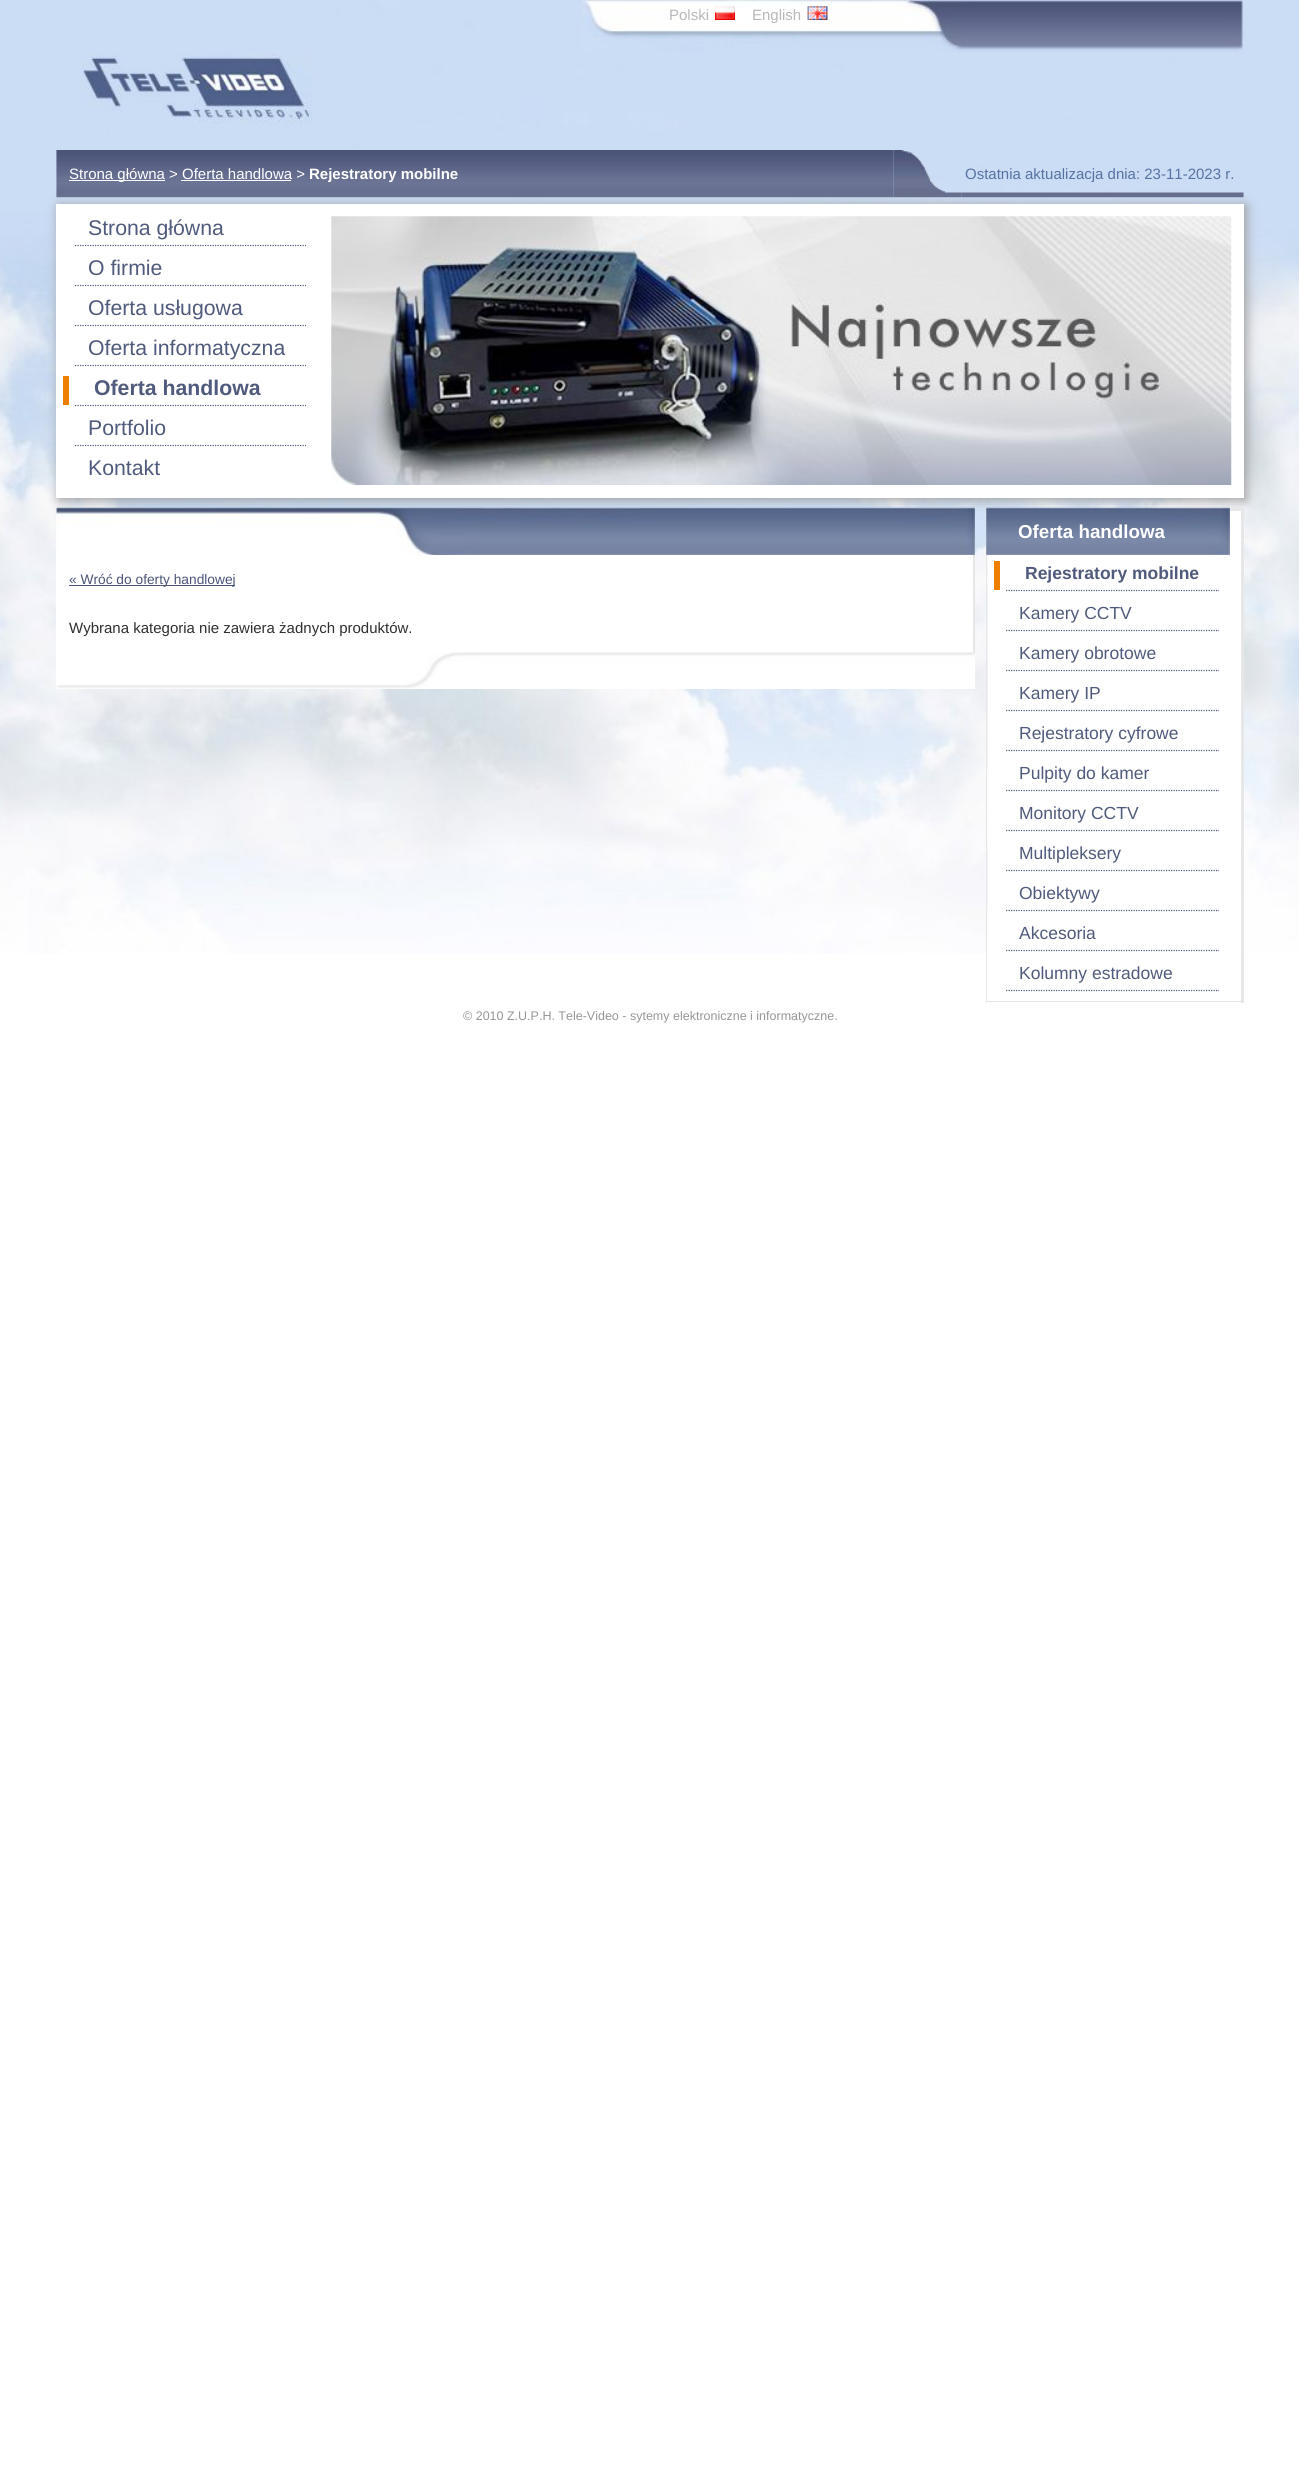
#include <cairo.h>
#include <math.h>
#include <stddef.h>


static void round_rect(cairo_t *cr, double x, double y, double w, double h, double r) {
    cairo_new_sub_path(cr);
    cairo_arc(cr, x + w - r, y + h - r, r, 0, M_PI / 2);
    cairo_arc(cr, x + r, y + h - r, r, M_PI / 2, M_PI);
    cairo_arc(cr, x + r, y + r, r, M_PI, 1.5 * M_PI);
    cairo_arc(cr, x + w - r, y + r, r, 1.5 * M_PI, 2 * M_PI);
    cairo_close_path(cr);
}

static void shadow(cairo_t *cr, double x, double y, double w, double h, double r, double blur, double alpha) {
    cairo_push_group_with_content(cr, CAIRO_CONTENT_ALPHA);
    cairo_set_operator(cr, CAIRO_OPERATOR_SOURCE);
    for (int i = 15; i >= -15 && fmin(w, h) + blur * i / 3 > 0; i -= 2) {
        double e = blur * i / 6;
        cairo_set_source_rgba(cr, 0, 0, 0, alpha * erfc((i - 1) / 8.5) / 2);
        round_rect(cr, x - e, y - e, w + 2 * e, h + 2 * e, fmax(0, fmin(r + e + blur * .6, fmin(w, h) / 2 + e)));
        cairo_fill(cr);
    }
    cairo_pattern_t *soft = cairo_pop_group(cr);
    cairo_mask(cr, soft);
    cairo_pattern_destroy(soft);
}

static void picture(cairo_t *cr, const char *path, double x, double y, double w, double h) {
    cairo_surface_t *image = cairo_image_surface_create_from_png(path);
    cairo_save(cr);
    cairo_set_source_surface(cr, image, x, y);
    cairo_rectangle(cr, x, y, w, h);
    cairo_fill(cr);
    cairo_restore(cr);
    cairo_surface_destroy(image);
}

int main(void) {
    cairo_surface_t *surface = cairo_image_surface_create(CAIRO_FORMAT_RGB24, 1299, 2484);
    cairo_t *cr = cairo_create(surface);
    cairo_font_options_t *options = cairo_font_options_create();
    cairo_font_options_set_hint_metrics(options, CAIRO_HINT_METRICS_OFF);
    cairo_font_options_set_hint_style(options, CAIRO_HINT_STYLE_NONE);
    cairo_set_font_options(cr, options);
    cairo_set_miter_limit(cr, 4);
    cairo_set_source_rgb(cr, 1, 1, 1);
    cairo_paint(cr);
    picture(cr, "img1.png", 0, 0, 1299, 954);
    picture(cr, "img2.png", 581, 0, 663, 52);
    cairo_select_font_face(cr, "Liberation Sans", CAIRO_FONT_SLANT_NORMAL, CAIRO_FONT_WEIGHT_NORMAL);
    cairo_set_font_size(cr, 15);
    cairo_set_source_rgb(cr, 0.722, 0.722, 0.722);
    cairo_move_to(cr, 669, 20);
    cairo_show_text(cr, "Polski");
    picture(cr, "img3.png", 715, 6, 20, 14);
    cairo_move_to(cr, 752, 20);
    cairo_show_text(cr, "English");
    picture(cr, "img4.png", 807, 6, 21, 14);
    picture(cr, "img5.png", 81, 53, 231, 72);
    picture(cr, "img6.png", 56, 150, 838, 48);
    cairo_set_source_rgb(cr, 1, 1, 1);
    cairo_rectangle(cr, 69, 180, 96, 1);
    cairo_fill(cr);
    cairo_move_to(cr, 69, 179);
    cairo_show_text(cr, "Strona główna > Oferta handlowa >");
    cairo_rectangle(cr, 181, 180, 110, 1);
    cairo_fill(cr);
    cairo_select_font_face(cr, "Liberation Sans", CAIRO_FONT_SLANT_NORMAL, CAIRO_FONT_WEIGHT_BOLD);
    cairo_move_to(cr, 309, 179);
    cairo_show_text(cr, "Rejestratory mobilne");
    picture(cr, "img7.png", 893, 150, 69, 48);
    picture(cr, "img8.png", 961, 192, 283, 6);
    cairo_select_font_face(cr, "Liberation Sans", CAIRO_FONT_SLANT_NORMAL, CAIRO_FONT_WEIGHT_NORMAL);
    cairo_set_source_rgb(cr, 0.341, 0.447, 0.631);
    cairo_move_to(cr, 965, 179);
    cairo_show_text(cr, "Ostatnia aktualizacja dnia: 23-11-2023 r.");
    cairo_set_source_rgb(cr, 0.6, 0.6, 0.6);
    shadow(cr, 59, 206, 1187, 294, 0, 6, 1);
    cairo_set_source_rgb(cr, 1, 1, 1);
    cairo_rectangle(cr, 56, 204, 1188, 294);
    cairo_fill(cr);
    cairo_new_path(cr);
    cairo_move_to(cr, 75, 245.5);
    cairo_line_to(cr, 306, 245.5);
    cairo_set_source_rgb(cr, 0.314, 0.353, 0.486);
    cairo_set_line_width(cr, 1.2);
    cairo_set_dash(cr, (double[]){1.25, 1.25}, 2, 0);
    cairo_stroke(cr);
    cairo_set_font_size(cr, 21.25);
    cairo_move_to(cr, 88, 235);
    cairo_show_text(cr, "Strona główna");
    cairo_new_path(cr);
    cairo_move_to(cr, 75, 285.5);
    cairo_line_to(cr, 306, 285.5);
    cairo_stroke(cr);
    cairo_move_to(cr, 88, 275);
    cairo_show_text(cr, "O firmie");
    cairo_new_path(cr);
    cairo_move_to(cr, 75, 325.5);
    cairo_line_to(cr, 306, 325.5);
    cairo_stroke(cr);
    cairo_move_to(cr, 88, 315);
    cairo_show_text(cr, "Oferta usługowa");
    cairo_new_path(cr);
    cairo_move_to(cr, 75, 365.5);
    cairo_line_to(cr, 306, 365.5);
    cairo_stroke(cr);
    cairo_move_to(cr, 88, 355);
    cairo_show_text(cr, "Oferta informatyczna");
    cairo_new_path(cr);
    cairo_move_to(cr, 75, 405.5);
    cairo_line_to(cr, 306, 405.5);
    cairo_stroke(cr);
    cairo_set_source_rgb(cr, 0.933, 0.498, 0);
    cairo_rectangle(cr, 63, 376, 6, 29);
    cairo_fill(cr);
    cairo_select_font_face(cr, "Liberation Sans", CAIRO_FONT_SLANT_NORMAL, CAIRO_FONT_WEIGHT_BOLD);
    cairo_set_source_rgb(cr, 0.314, 0.353, 0.486);
    cairo_move_to(cr, 94, 395);
    cairo_show_text(cr, "Oferta handlowa");
    cairo_new_path(cr);
    cairo_move_to(cr, 75, 445.5);
    cairo_line_to(cr, 306, 445.5);
    cairo_stroke(cr);
    cairo_select_font_face(cr, "Liberation Sans", CAIRO_FONT_SLANT_NORMAL, CAIRO_FONT_WEIGHT_NORMAL);
    cairo_move_to(cr, 88, 435);
    cairo_show_text(cr, "Portfolio");
    cairo_move_to(cr, 88, 475);
    cairo_show_text(cr, "Kontakt");
    picture(cr, "img9.png", 331, 216, 901, 269);
    cairo_set_source_rgb(cr, 1, 1, 1);
    cairo_rectangle(cr, 56, 508, 1, 47);
    cairo_fill(cr);
    picture(cr, "img10.png", 56, 507, 919, 48);
    cairo_rectangle(cr, 56, 555, 917, 98);
    cairo_fill(cr);
    cairo_set_source_rgb(cr, 0.906, 0.906, 0.906);
    cairo_rectangle(cr, 973, 555, 2, 98);
    cairo_fill(cr);
    cairo_set_source_rgb(cr, 0.29, 0.329, 0.467);
    cairo_rectangle(cr, 69, 585, 166, 1);
    cairo_fill(cr);
    cairo_set_font_size(cr, 13.75);
    cairo_move_to(cr, 69, 584);
    cairo_show_text(cr, "« Wróć do oferty handlowej");
    cairo_set_font_size(cr, 15);
    cairo_set_source_rgb(cr, 0.184, 0.184, 0.184);
    cairo_move_to(cr, 69, 633);
    cairo_show_text(cr, "Wybrana kategoria nie zawiera żadnych produktów.");
    cairo_set_source_rgb(cr, 1, 1, 1);
    cairo_rectangle(cr, 56, 653, 919, 36);
    cairo_fill(cr);
    picture(cr, "img11.png", 56, 652, 919, 37);
    cairo_rectangle(cr, 988, 511, 253, 443);
    cairo_fill(cr);
    cairo_set_source_rgb(cr, 0.906, 0.906, 0.906);
    cairo_rectangle(cr, 1230, 508, 14, 3);
    cairo_fill(cr);
    cairo_rectangle(cr, 1241, 508, 3, 495);
    cairo_fill(cr);
    cairo_rectangle(cr, 986, 1001, 258, 1);
    cairo_fill(cr);
    cairo_rectangle(cr, 986, 508, 1, 495);
    cairo_fill(cr);
    picture(cr, "img12.png", 986, 507, 244, 48);
    cairo_select_font_face(cr, "Liberation Sans", CAIRO_FONT_SLANT_NORMAL, CAIRO_FONT_WEIGHT_BOLD);
    cairo_set_font_size(cr, 18.75);
    cairo_set_source_rgb(cr, 1, 1, 1);
    cairo_move_to(cr, 1018, 538);
    cairo_show_text(cr, "Oferta handlowa");
    cairo_new_path(cr);
    cairo_move_to(cr, 1006, 590.5);
    cairo_line_to(cr, 1219, 590.5);
    cairo_set_source_rgb(cr, 0.314, 0.353, 0.486);
    cairo_stroke(cr);
    cairo_set_source_rgb(cr, 0.933, 0.498, 0);
    cairo_rectangle(cr, 994, 561, 6, 29);
    cairo_fill(cr);
    cairo_set_font_size(cr, 17.5);
    cairo_set_source_rgb(cr, 0.314, 0.353, 0.486);
    cairo_move_to(cr, 1025, 579);
    cairo_show_text(cr, "Rejestratory mobilne");
    cairo_new_path(cr);
    cairo_move_to(cr, 1006, 630.5);
    cairo_line_to(cr, 1219, 630.5);
    cairo_stroke(cr);
    cairo_select_font_face(cr, "Liberation Sans", CAIRO_FONT_SLANT_NORMAL, CAIRO_FONT_WEIGHT_NORMAL);
    cairo_move_to(cr, 1019, 619);
    cairo_show_text(cr, "Kamery CCTV");
    cairo_new_path(cr);
    cairo_move_to(cr, 1006, 670.5);
    cairo_line_to(cr, 1219, 670.5);
    cairo_stroke(cr);
    cairo_move_to(cr, 1019, 659);
    cairo_show_text(cr, "Kamery obrotowe");
    cairo_new_path(cr);
    cairo_move_to(cr, 1006, 710.5);
    cairo_line_to(cr, 1219, 710.5);
    cairo_stroke(cr);
    cairo_move_to(cr, 1019, 699);
    cairo_show_text(cr, "Kamery IP");
    cairo_new_path(cr);
    cairo_move_to(cr, 1006, 750.5);
    cairo_line_to(cr, 1219, 750.5);
    cairo_stroke(cr);
    cairo_move_to(cr, 1019, 739);
    cairo_show_text(cr, "Rejestratory cyfrowe");
    cairo_new_path(cr);
    cairo_move_to(cr, 1006, 790.5);
    cairo_line_to(cr, 1219, 790.5);
    cairo_stroke(cr);
    cairo_move_to(cr, 1019, 779);
    cairo_show_text(cr, "Pulpity do kamer");
    cairo_new_path(cr);
    cairo_move_to(cr, 1006, 830.5);
    cairo_line_to(cr, 1219, 830.5);
    cairo_stroke(cr);
    cairo_move_to(cr, 1019, 819);
    cairo_show_text(cr, "Monitory CCTV");
    cairo_new_path(cr);
    cairo_move_to(cr, 1006, 870.5);
    cairo_line_to(cr, 1219, 870.5);
    cairo_stroke(cr);
    cairo_move_to(cr, 1019, 859);
    cairo_show_text(cr, "Multipleksery");
    cairo_new_path(cr);
    cairo_move_to(cr, 1006, 910.5);
    cairo_line_to(cr, 1219, 910.5);
    cairo_stroke(cr);
    cairo_move_to(cr, 1019, 899);
    cairo_show_text(cr, "Obiektywy");
    cairo_new_path(cr);
    cairo_move_to(cr, 1006, 950.5);
    cairo_line_to(cr, 1219, 950.5);
    cairo_stroke(cr);
    cairo_move_to(cr, 1019, 939);
    cairo_show_text(cr, "Akcesoria");
    cairo_new_path(cr);
    cairo_move_to(cr, 1006, 990.5);
    cairo_line_to(cr, 1219, 990.5);
    cairo_stroke(cr);
    cairo_move_to(cr, 1019, 979);
    cairo_show_text(cr, "Kolumny estradowe");
    cairo_set_font_size(cr, 12.5);
    cairo_set_source_rgb(cr, 0.592, 0.584, 0.584);
    cairo_move_to(cr, 463, 1020);
    cairo_show_text(cr, "© 2010 Z.U.P.H. Tele-Video - sytemy elektroniczne i informatyczne.");
    cairo_surface_write_to_png(surface, "page.png");
    cairo_font_options_destroy(options);
    cairo_destroy(cr);
    cairo_surface_destroy(surface);
    return 0;
}
